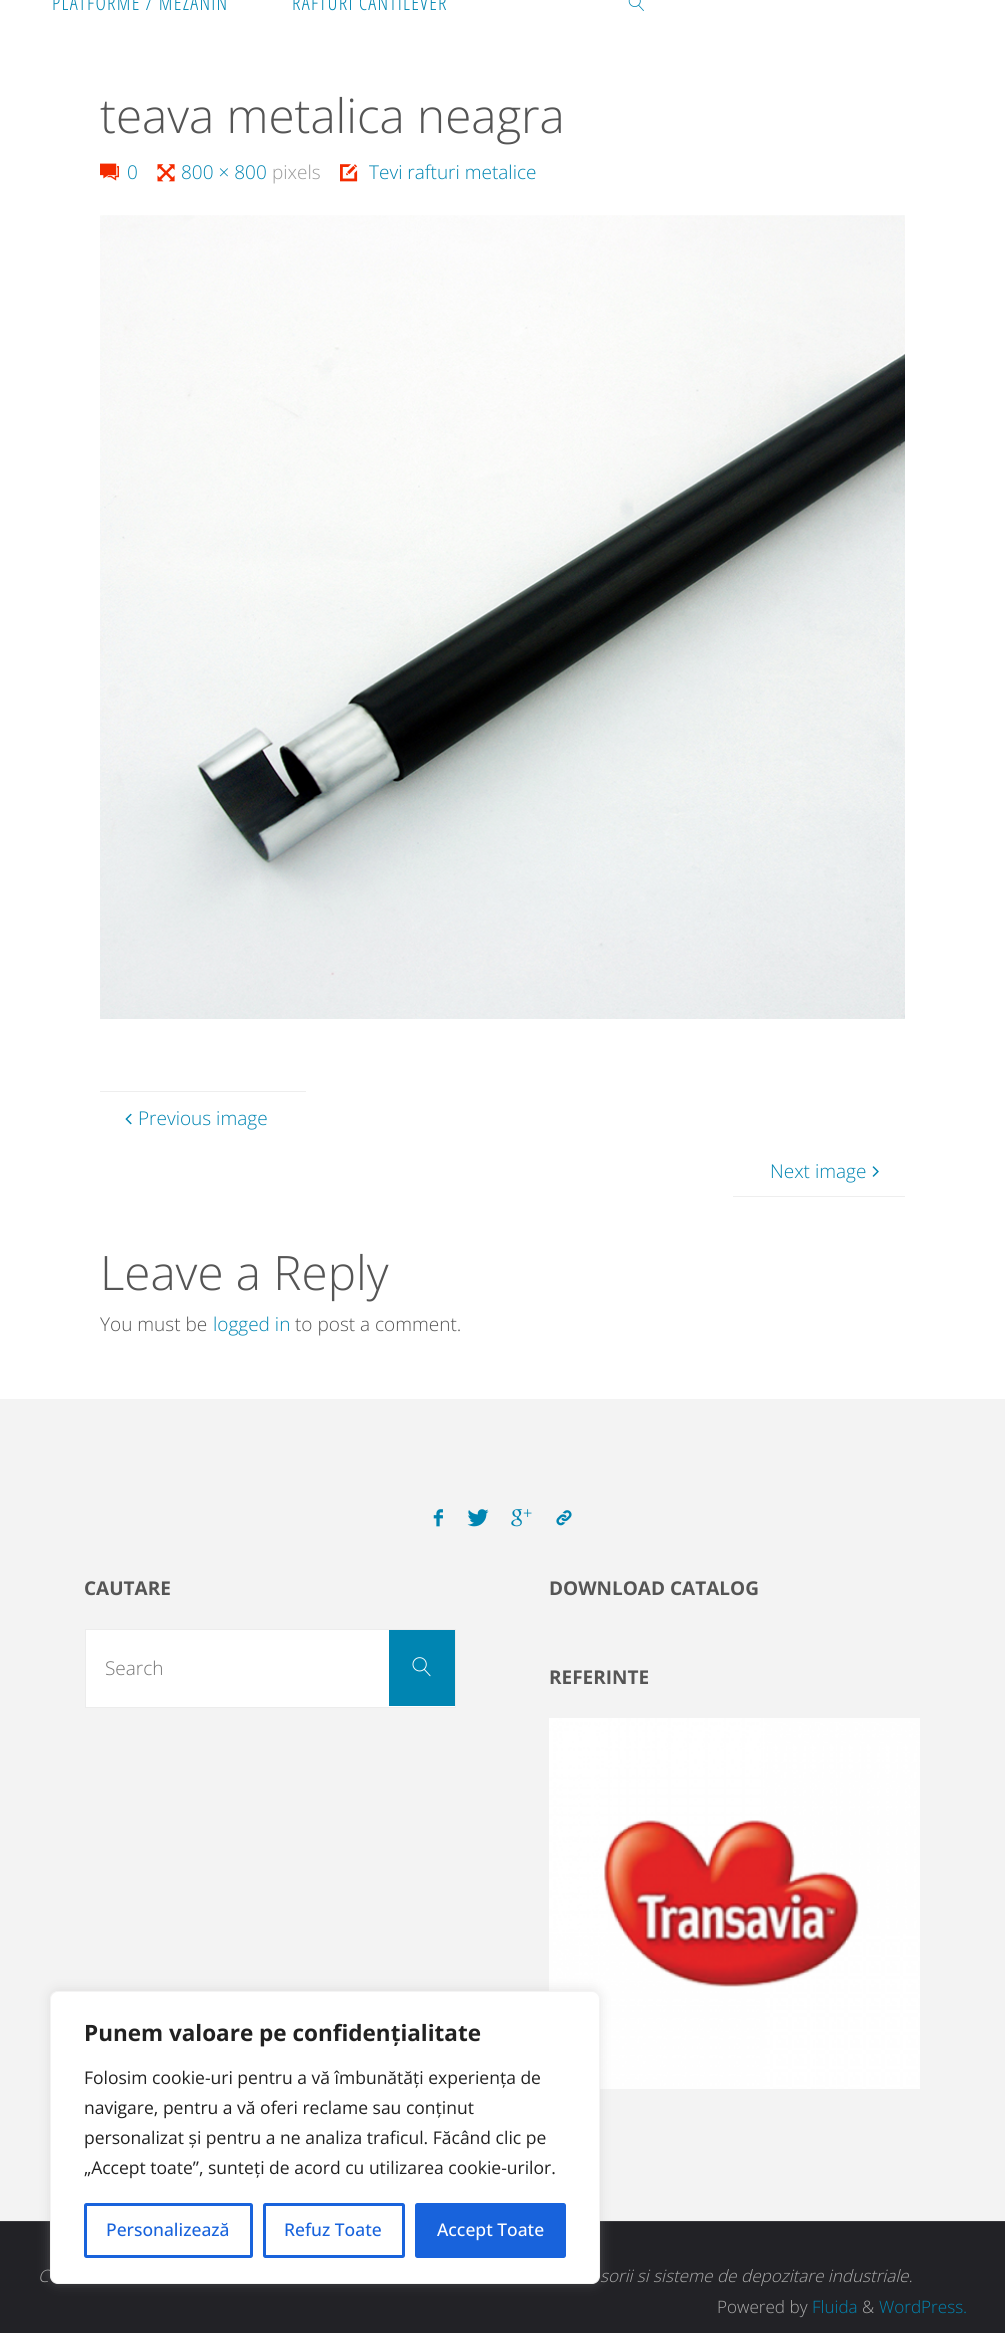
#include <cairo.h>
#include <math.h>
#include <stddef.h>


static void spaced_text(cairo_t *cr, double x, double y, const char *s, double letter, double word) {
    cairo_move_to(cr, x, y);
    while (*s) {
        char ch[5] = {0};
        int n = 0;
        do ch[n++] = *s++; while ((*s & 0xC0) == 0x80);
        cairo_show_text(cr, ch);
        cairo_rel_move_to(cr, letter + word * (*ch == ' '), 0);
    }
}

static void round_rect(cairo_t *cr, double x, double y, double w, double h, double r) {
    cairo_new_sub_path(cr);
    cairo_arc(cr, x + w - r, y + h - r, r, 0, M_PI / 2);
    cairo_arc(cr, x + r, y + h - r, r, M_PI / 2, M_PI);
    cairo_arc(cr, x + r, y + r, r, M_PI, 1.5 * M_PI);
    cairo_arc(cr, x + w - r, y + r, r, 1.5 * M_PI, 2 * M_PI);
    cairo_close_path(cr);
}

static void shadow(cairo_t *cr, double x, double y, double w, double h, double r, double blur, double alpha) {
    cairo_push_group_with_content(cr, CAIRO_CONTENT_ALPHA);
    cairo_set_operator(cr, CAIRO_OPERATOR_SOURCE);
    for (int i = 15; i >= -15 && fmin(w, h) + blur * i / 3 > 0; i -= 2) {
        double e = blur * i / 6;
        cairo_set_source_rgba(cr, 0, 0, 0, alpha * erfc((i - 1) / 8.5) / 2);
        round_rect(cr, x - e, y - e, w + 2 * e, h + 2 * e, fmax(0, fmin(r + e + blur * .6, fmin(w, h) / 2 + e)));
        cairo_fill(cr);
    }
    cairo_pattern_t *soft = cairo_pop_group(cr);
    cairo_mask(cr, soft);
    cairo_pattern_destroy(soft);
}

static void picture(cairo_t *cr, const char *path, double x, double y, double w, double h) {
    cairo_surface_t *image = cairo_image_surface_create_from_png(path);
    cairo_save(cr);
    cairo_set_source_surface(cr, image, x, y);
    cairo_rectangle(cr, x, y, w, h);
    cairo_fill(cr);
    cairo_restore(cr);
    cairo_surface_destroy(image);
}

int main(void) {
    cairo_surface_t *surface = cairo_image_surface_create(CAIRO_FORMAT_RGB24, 1005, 2333);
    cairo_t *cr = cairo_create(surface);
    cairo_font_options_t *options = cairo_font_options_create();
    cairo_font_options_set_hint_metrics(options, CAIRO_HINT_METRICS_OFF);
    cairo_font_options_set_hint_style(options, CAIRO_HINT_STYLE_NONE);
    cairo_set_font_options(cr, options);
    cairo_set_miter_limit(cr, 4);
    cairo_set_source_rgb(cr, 0.953, 0.953, 0.953);
    cairo_paint(cr);
    cairo_set_source_rgb(cr, 1, 1, 1);
    cairo_rectangle(cr, 0, 0, 1005, 1399);
    cairo_fill(cr);
    cairo_select_font_face(cr, "Open Sans Condensed Light", CAIRO_FONT_SLANT_NORMAL, CAIRO_FONT_WEIGHT_NORMAL);
    cairo_set_font_size(cr, 20);
    cairo_set_source_rgb(cr, 0, 0.522, 0.698);
    spaced_text(cr, 52, 10, "PLATFORME / MEZANIN", 1.25, 0);
    spaced_text(cr, 292, 10, "RAFTURI CANTILEVER", 1.25, 0);
    picture(cr, "img1.png", 628, 0, 16, 11);
    cairo_select_font_face(cr, "Open Sans Light", CAIRO_FONT_SLANT_NORMAL, CAIRO_FONT_WEIGHT_NORMAL);
    cairo_set_font_size(cr, 47.5);
    cairo_set_source_rgb(cr, 0.333, 0.333, 0.333);
    cairo_move_to(cr, 100, 133);
    cairo_show_text(cr, "teava metalica neagra");
    picture(cr, "img2.png", 100, 163, 19, 18);
    cairo_set_font_size(cr, 19);
    cairo_set_source_rgb(cr, 0, 0.522, 0.698);
    cairo_move_to(cr, 127, 179);
    cairo_show_text(cr, "0");
    picture(cr, "img3.png", 157, 164, 18, 18);
    cairo_move_to(cr, 181, 179);
    cairo_show_text(cr, "800 × 800");
    cairo_set_source_rgb(cr, 0.604, 0.604, 0.604);
    cairo_move_to(cr, 272, 179);
    cairo_show_text(cr, "pixels");
    picture(cr, "img4.png", 340, 164, 18, 18);
    cairo_set_source_rgb(cr, 0, 0.522, 0.698);
    cairo_move_to(cr, 369, 179);
    cairo_show_text(cr, "Tevi rafturi metalice");
    picture(cr, "img5.png", 100, 215, 805, 804);
    cairo_set_source_rgb(cr, 0.933, 0.933, 0.933);
    cairo_rectangle(cr, 100, 1091, 206, 1);
    cairo_fill(cr);
    picture(cr, "img6.png", 125, 1113, 7, 12);
    cairo_set_source_rgb(cr, 0, 0.522, 0.698);
    cairo_move_to(cr, 138, 1125);
    cairo_show_text(cr, "Previous image");
    cairo_move_to(cr, 770, 1178);
    cairo_show_text(cr, "Next image");
    picture(cr, "img7.png", 872, 1166, 7, 11);
    cairo_set_source_rgb(cr, 0.933, 0.933, 0.933);
    cairo_rectangle(cr, 733, 1196, 172, 1);
    cairo_fill(cr);
    cairo_set_font_size(cr, 47.5);
    cairo_set_source_rgb(cr, 0.333, 0.333, 0.333);
    cairo_move_to(cr, 100, 1290);
    cairo_show_text(cr, "Leave a Reply");
    cairo_set_font_size(cr, 19);
    cairo_move_to(cr, 100, 1331);
    cairo_show_text(cr, "You must be");
    cairo_set_source_rgb(cr, 0, 0.522, 0.698);
    cairo_move_to(cr, 213, 1331);
    cairo_show_text(cr, "logged in");
    cairo_set_source_rgb(cr, 0.333, 0.333, 0.333);
    cairo_move_to(cr, 295, 1331);
    cairo_show_text(cr, "to post a comment.");
    picture(cr, "img8.png", 433, 1509, 10, 18);
    picture(cr, "img9.png", 467, 1509, 22, 18);
    picture(cr, "img10.png", 511, 1509, 21, 18);
    picture(cr, "img11.png", 556, 1510, 16, 16);
    cairo_select_font_face(cr, "Open Sans", CAIRO_FONT_SLANT_NORMAL, CAIRO_FONT_WEIGHT_BOLD);
    cairo_move_to(cr, 84, 1595);
    cairo_show_text(cr, "CAUTARE");
    cairo_set_source_rgb(cr, 1, 1, 1);
    cairo_rectangle(cr, 85.5, 1629.5, 370, 78);
    cairo_fill_preserve(cr);
    cairo_set_source_rgb(cr, 0.922, 0.922, 0.922);
    cairo_set_line_width(cr, 1);
    cairo_stroke(cr);
    cairo_set_source_rgb(cr, 0, 0.522, 0.698);
    cairo_rectangle(cr, 389, 1630, 66, 76);
    cairo_fill(cr);
    cairo_select_font_face(cr, "Open Sans Light", CAIRO_FONT_SLANT_NORMAL, CAIRO_FONT_WEIGHT_NORMAL);
    cairo_set_source_rgb(cr, 0.459, 0.459, 0.459);
    cairo_move_to(cr, 105, 1675);
    cairo_show_text(cr, "Search");
    picture(cr, "img12.png", 412, 1657, 19, 20);
    cairo_select_font_face(cr, "Open Sans", CAIRO_FONT_SLANT_NORMAL, CAIRO_FONT_WEIGHT_BOLD);
    cairo_set_source_rgb(cr, 0.333, 0.333, 0.333);
    cairo_move_to(cr, 549, 1595);
    cairo_show_text(cr, "DOWNLOAD CATALOG");
    cairo_move_to(cr, 549, 1684);
    cairo_show_text(cr, "REFERINTE");
    picture(cr, "img13.png", 549, 1718, 371, 371);
    cairo_set_source_rgb(cr, 0.133, 0.133, 0.149);
    cairo_rectangle(cr, 0, 2222, 1005, 111);
    cairo_fill(cr);
    cairo_set_source_rgb(cr, 0.212, 0.212, 0.227);
    cairo_rectangle(cr, 0, 2221, 1005, 1);
    cairo_fill(cr);
    cairo_select_font_face(cr, "Open Sans Light", CAIRO_FONT_SLANT_ITALIC, CAIRO_FONT_WEIGHT_NORMAL);
    cairo_set_font_size(cr, 17.1);
    cairo_set_source_rgb(cr, 0.667, 0.667, 0.667);
    cairo_move_to(cr, 38, 2282);
    cairo_show_text(cr, "C");
    cairo_move_to(cr, 600, 2282);
    cairo_show_text(cr, "sorii si sisteme de depozitare industriale.");
    cairo_select_font_face(cr, "Open Sans Light", CAIRO_FONT_SLANT_NORMAL, CAIRO_FONT_WEIGHT_NORMAL);
    cairo_move_to(cr, 717, 2313);
    cairo_show_text(cr, "Powered by");
    cairo_set_source_rgb(cr, 0, 0.522, 0.698);
    cairo_move_to(cr, 812, 2313);
    cairo_show_text(cr, "Fluida");
    cairo_set_source_rgb(cr, 0.667, 0.667, 0.667);
    cairo_move_to(cr, 862, 2313);
    cairo_show_text(cr, "&");
    cairo_set_source_rgb(cr, 0, 0.522, 0.698);
    cairo_move_to(cr, 879, 2313);
    cairo_show_text(cr, "WordPress.");
    cairo_set_source_rgb(cr, 0.675, 0.671, 0.671);
    shadow(cr, 50, 1990, 550, 293, 8, 6, 0.3);
    cairo_set_source_rgb(cr, 1, 1, 1);
    round_rect(cr, 50.5, 1991.5, 549, 292, 7.5);
    cairo_fill_preserve(cr);
    cairo_set_source_rgb(cr, 0.957, 0.957, 0.957);
    cairo_stroke(cr);
    cairo_select_font_face(cr, "Open Sans", CAIRO_FONT_SLANT_NORMAL, CAIRO_FONT_WEIGHT_BOLD);
    cairo_set_font_size(cr, 22.5);
    cairo_set_source_rgb(cr, 0.129, 0.129, 0.129);
    cairo_move_to(cr, 84, 2041);
    cairo_show_text(cr, "Punem valoare pe confidențialitate");
    cairo_select_font_face(cr, "Open Sans", CAIRO_FONT_SLANT_NORMAL, CAIRO_FONT_WEIGHT_NORMAL);
    cairo_set_font_size(cr, 17.5);
    cairo_move_to(cr, 84, 2084);
    cairo_show_text(cr, "Folosim cookie-uri pentru a vă îmbunătăți experiența de");
    cairo_move_to(cr, 84, 2114);
    cairo_show_text(cr, "navigare, pentru a vă oferi reclame sau conținut");
    cairo_move_to(cr, 84, 2144);
    cairo_show_text(cr, "personalizat și pentru a ne analiza traficul. Făcând clic pe");
    cairo_move_to(cr, 84, 2174);
    cairo_show_text(cr, "„Accept toate”, sunteți de acord cu utilizarea cookie-urilor.");
    round_rect(cr, 85.5, 2204.5, 166, 52, 1);
    cairo_set_source_rgb(cr, 0.094, 0.388, 0.863);
    cairo_set_line_width(cr, 3);
    cairo_stroke(cr);
    cairo_select_font_face(cr, "Open Sans Medium", CAIRO_FONT_SLANT_NORMAL, CAIRO_FONT_WEIGHT_NORMAL);
    cairo_move_to(cr, 106, 2236);
    cairo_show_text(cr, "Personalizează");
    round_rect(cr, 264.5, 2204.5, 139, 52, 1);
    cairo_stroke(cr);
    cairo_move_to(cr, 284, 2236);
    cairo_show_text(cr, "Refuz Toate");
    round_rect(cr, 416.5, 2204.5, 148, 52, 1);
    cairo_fill_preserve(cr);
    cairo_stroke(cr);
    cairo_set_source_rgb(cr, 1, 1, 1);
    cairo_move_to(cr, 437, 2236);
    cairo_show_text(cr, "Accept Toate");
    cairo_surface_write_to_png(surface, "page.png");
    cairo_font_options_destroy(options);
    cairo_destroy(cr);
    cairo_surface_destroy(surface);
    return 0;
}
